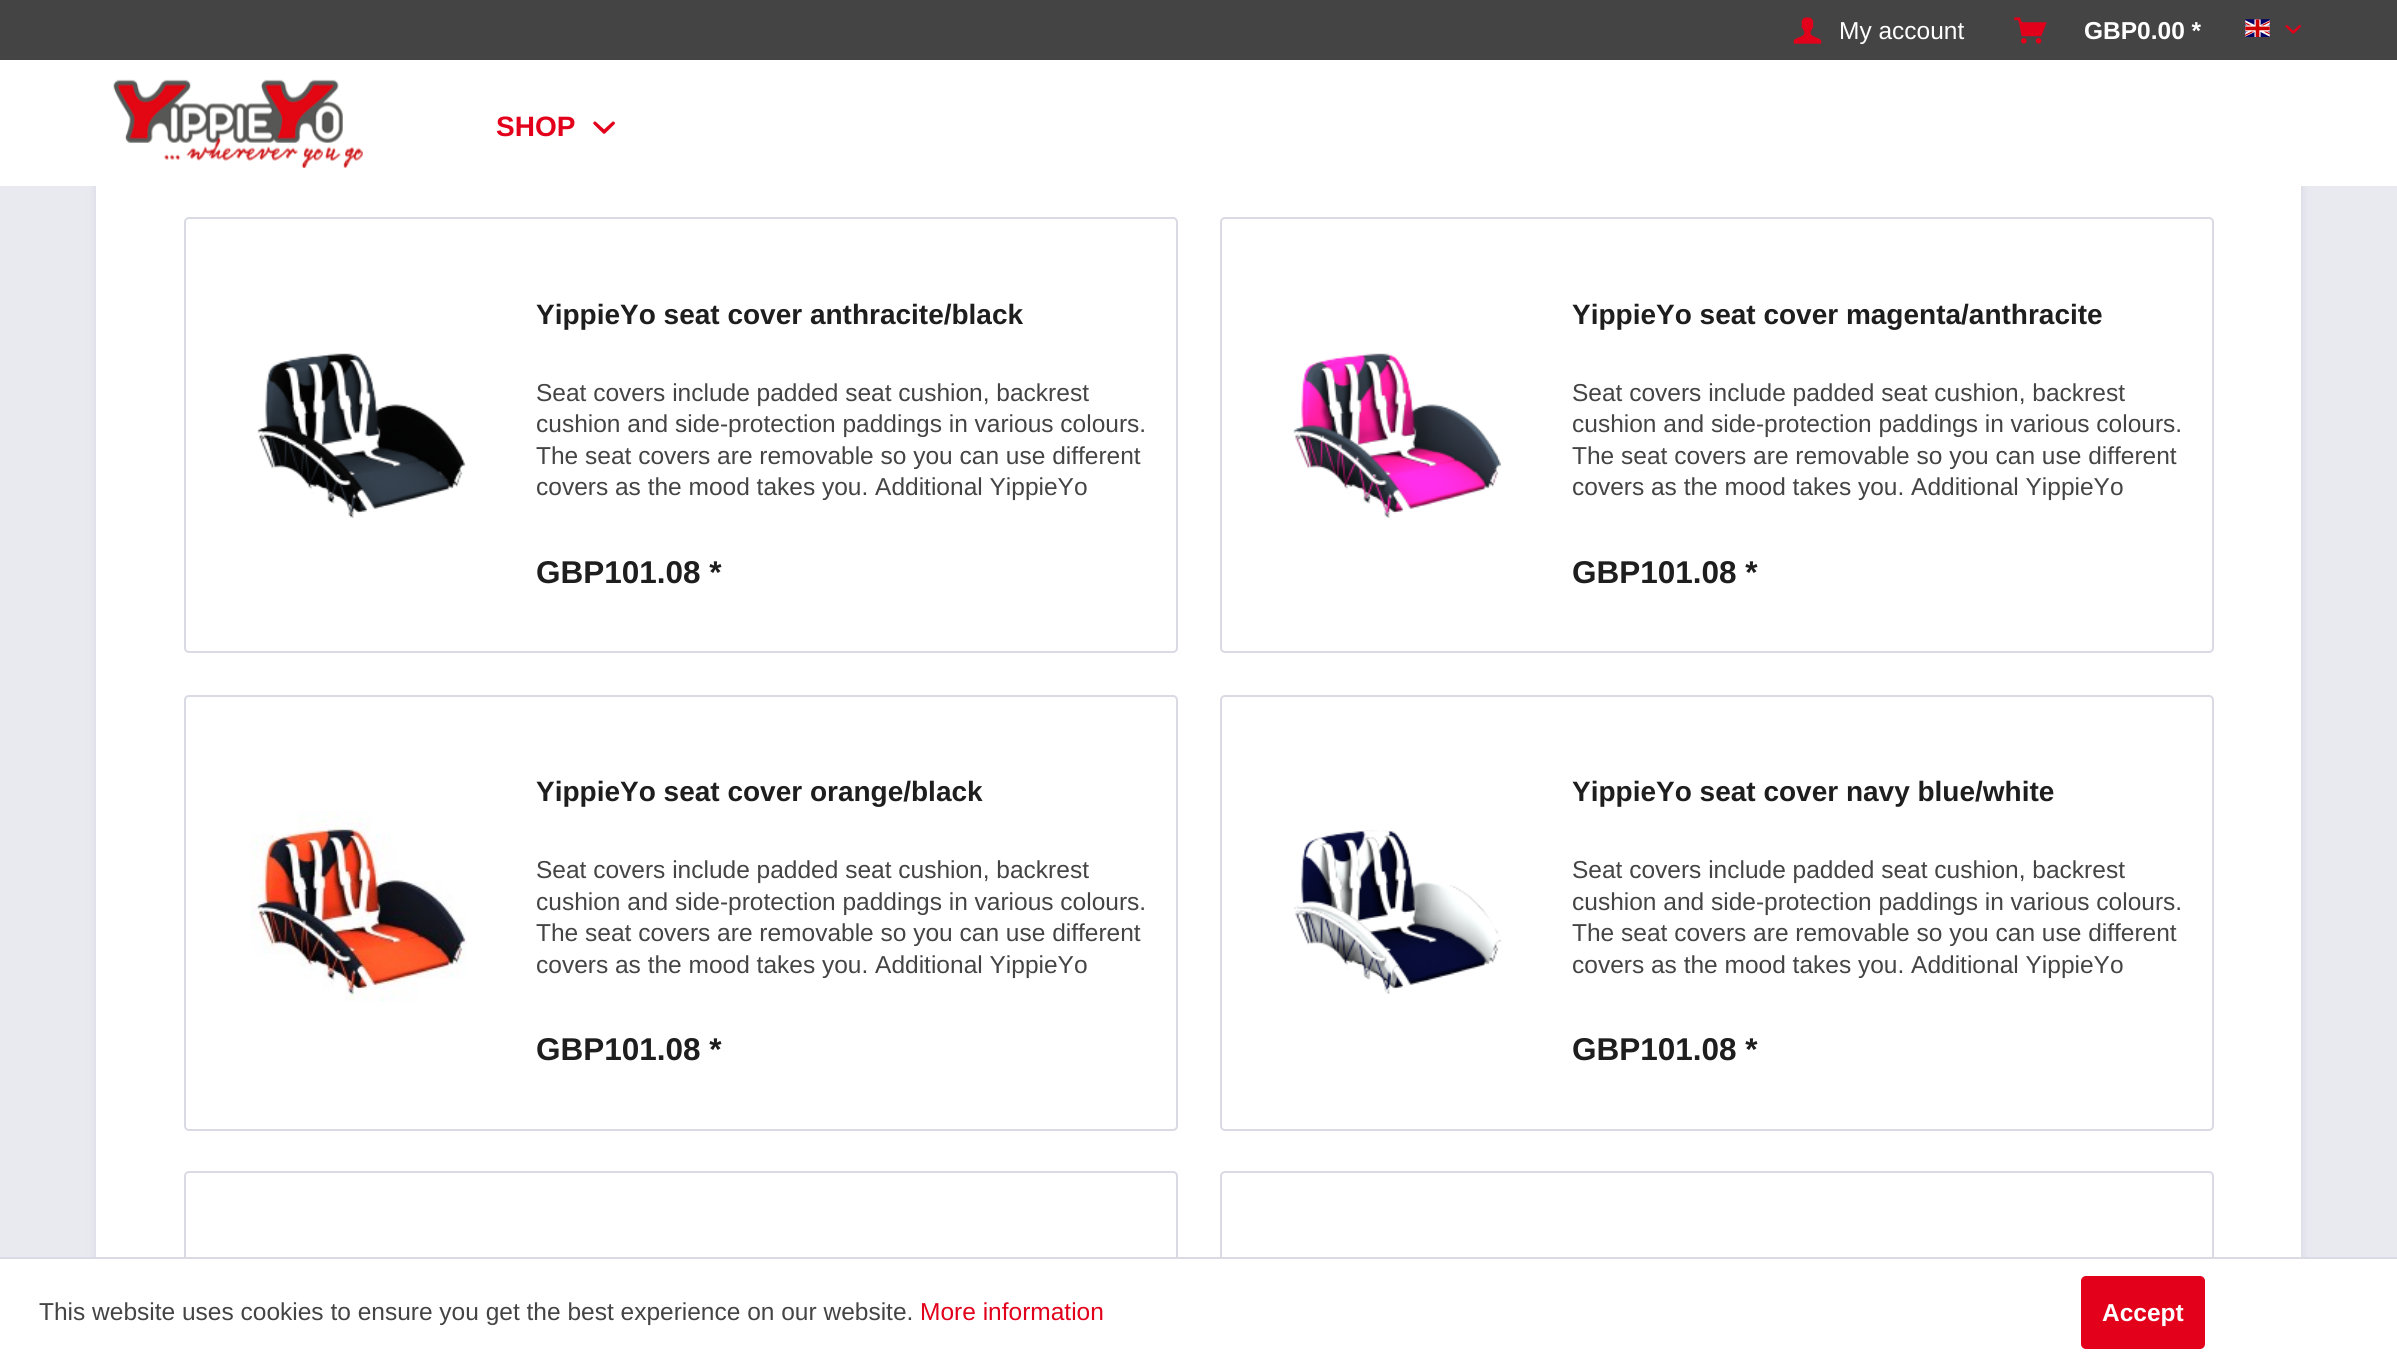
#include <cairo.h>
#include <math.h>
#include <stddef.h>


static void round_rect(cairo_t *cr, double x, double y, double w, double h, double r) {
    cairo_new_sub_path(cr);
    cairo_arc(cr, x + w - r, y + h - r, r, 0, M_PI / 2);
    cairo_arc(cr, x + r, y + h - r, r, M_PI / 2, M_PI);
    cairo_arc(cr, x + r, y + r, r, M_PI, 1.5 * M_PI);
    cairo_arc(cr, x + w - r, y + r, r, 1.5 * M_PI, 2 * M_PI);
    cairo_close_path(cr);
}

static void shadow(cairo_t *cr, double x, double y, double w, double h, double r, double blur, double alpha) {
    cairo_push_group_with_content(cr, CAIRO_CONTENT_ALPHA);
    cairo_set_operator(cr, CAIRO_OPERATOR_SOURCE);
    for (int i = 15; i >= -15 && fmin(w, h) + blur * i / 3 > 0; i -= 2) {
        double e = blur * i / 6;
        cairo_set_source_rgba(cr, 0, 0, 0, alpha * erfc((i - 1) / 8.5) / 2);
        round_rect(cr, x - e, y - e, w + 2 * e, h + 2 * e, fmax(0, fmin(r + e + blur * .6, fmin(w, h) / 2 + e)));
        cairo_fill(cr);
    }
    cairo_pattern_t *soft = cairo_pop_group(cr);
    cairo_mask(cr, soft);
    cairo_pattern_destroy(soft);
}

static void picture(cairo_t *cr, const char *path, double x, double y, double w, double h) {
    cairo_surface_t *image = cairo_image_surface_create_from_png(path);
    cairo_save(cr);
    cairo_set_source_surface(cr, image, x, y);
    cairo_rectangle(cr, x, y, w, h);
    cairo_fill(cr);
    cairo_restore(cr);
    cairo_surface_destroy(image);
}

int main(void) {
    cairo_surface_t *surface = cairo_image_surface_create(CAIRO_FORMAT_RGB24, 2397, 1366);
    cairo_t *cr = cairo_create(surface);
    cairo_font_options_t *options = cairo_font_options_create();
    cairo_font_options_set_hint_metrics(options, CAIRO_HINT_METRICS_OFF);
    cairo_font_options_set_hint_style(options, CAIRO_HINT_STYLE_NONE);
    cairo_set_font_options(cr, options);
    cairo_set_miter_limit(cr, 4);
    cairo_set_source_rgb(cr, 0.914, 0.914, 0.941);
    cairo_paint(cr);
    cairo_set_source_rgb(cr, 0.855, 0.855, 0.898);
    shadow(cr, 95, -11, 2208, 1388, 0, 3.5, 1);
    cairo_set_source_rgb(cr, 1, 1, 1);
    cairo_rectangle(cr, 0, 60, 2397, 126);
    cairo_fill(cr);
    cairo_set_source_rgb(cr, 0.267, 0.267, 0.267);
    cairo_rectangle(cr, 0, 0, 2397, 60);
    cairo_fill(cr);
    picture(cr, "img1.png", 1793, 17, 29, 27);
    cairo_select_font_face(cr, "Liberation Sans", CAIRO_FONT_SLANT_NORMAL, CAIRO_FONT_WEIGHT_NORMAL);
    cairo_set_font_size(cr, 24.5);
    cairo_set_source_rgb(cr, 1, 1, 1);
    cairo_move_to(cr, 1839, 39);
    cairo_show_text(cr, "My account");
    picture(cr, "img2.png", 2014, 17, 33, 27);
    cairo_select_font_face(cr, "Liberation Sans", CAIRO_FONT_SLANT_NORMAL, CAIRO_FONT_WEIGHT_BOLD);
    cairo_move_to(cr, 2084, 39);
    cairo_show_text(cr, "GBP0.00 *");
    picture(cr, "img3.png", 2245, 19, 25, 18);
    picture(cr, "img4.png", 2285, 25, 16, 9);
    picture(cr, "img5.png", 113, 79, 250, 89);
    cairo_set_font_size(cr, 28);
    cairo_set_source_rgb(cr, 0.886, 0, 0.102);
    cairo_move_to(cr, 496, 136);
    cairo_show_text(cr, "SHOP");
    picture(cr, "img6.png", 593, 121, 22, 13);
    cairo_set_source_rgb(cr, 1, 1, 1);
    cairo_rectangle(cr, 96, 186, 2205, 1071);
    cairo_fill(cr);
    round_rect(cr, 185, 218, 992, 434, 4);
    cairo_set_source_rgb(cr, 0.855, 0.855, 0.898);
    cairo_stroke(cr);
    cairo_set_source_rgb(cr, 0.118, 0.118, 0.118);
    cairo_move_to(cr, 536, 324);
    cairo_show_text(cr, "YippieYo seat cover anthracite/black");
    picture(cr, "img7.png", 257, 353, 209, 166);
    cairo_select_font_face(cr, "Liberation Sans", CAIRO_FONT_SLANT_NORMAL, CAIRO_FONT_WEIGHT_NORMAL);
    cairo_set_font_size(cr, 24.5);
    cairo_set_source_rgb(cr, 0.267, 0.267, 0.267);
    cairo_move_to(cr, 536, 401);
    cairo_show_text(cr, "Seat covers include padded seat cushion, backrest");
    cairo_move_to(cr, 536, 432);
    cairo_show_text(cr, "cushion and side-protection paddings in various colours.");
    cairo_move_to(cr, 536, 464);
    cairo_show_text(cr, "The seat covers are removable so you can use different");
    cairo_move_to(cr, 536, 495);
    cairo_show_text(cr, "covers as the mood takes you. Additional YippieYo");
    cairo_select_font_face(cr, "Liberation Sans", CAIRO_FONT_SLANT_NORMAL, CAIRO_FONT_WEIGHT_BOLD);
    cairo_set_font_size(cr, 31.5);
    cairo_set_source_rgb(cr, 0.118, 0.118, 0.118);
    cairo_move_to(cr, 536, 583);
    cairo_show_text(cr, "GBP101.08 *");
    round_rect(cr, 1221, 218, 992, 434, 4);
    cairo_set_source_rgb(cr, 0.855, 0.855, 0.898);
    cairo_stroke(cr);
    cairo_set_font_size(cr, 28);
    cairo_set_source_rgb(cr, 0.118, 0.118, 0.118);
    cairo_move_to(cr, 1572, 324);
    cairo_show_text(cr, "YippieYo seat cover magenta/anthracite");
    picture(cr, "img8.png", 1293, 353, 209, 166);
    cairo_select_font_face(cr, "Liberation Sans", CAIRO_FONT_SLANT_NORMAL, CAIRO_FONT_WEIGHT_NORMAL);
    cairo_set_font_size(cr, 24.5);
    cairo_set_source_rgb(cr, 0.267, 0.267, 0.267);
    cairo_move_to(cr, 1572, 401);
    cairo_show_text(cr, "Seat covers include padded seat cushion, backrest");
    cairo_move_to(cr, 1572, 432);
    cairo_show_text(cr, "cushion and side-protection paddings in various colours.");
    cairo_move_to(cr, 1572, 464);
    cairo_show_text(cr, "The seat covers are removable so you can use different");
    cairo_move_to(cr, 1572, 495);
    cairo_show_text(cr, "covers as the mood takes you. Additional YippieYo");
    cairo_select_font_face(cr, "Liberation Sans", CAIRO_FONT_SLANT_NORMAL, CAIRO_FONT_WEIGHT_BOLD);
    cairo_set_font_size(cr, 31.5);
    cairo_set_source_rgb(cr, 0.118, 0.118, 0.118);
    cairo_move_to(cr, 1572, 583);
    cairo_show_text(cr, "GBP101.08 *");
    round_rect(cr, 185, 696, 992, 434, 4);
    cairo_set_source_rgb(cr, 0.855, 0.855, 0.898);
    cairo_stroke(cr);
    cairo_set_font_size(cr, 28);
    cairo_set_source_rgb(cr, 0.118, 0.118, 0.118);
    cairo_move_to(cr, 536, 801);
    cairo_show_text(cr, "YippieYo seat cover orange/black");
    picture(cr, "img9.png", 250, 811, 217, 191);
    cairo_select_font_face(cr, "Liberation Sans", CAIRO_FONT_SLANT_NORMAL, CAIRO_FONT_WEIGHT_NORMAL);
    cairo_set_font_size(cr, 24.5);
    cairo_set_source_rgb(cr, 0.267, 0.267, 0.267);
    cairo_move_to(cr, 536, 878);
    cairo_show_text(cr, "Seat covers include padded seat cushion, backrest");
    cairo_move_to(cr, 536, 910);
    cairo_show_text(cr, "cushion and side-protection paddings in various colours.");
    cairo_move_to(cr, 536, 941);
    cairo_show_text(cr, "The seat covers are removable so you can use different");
    cairo_move_to(cr, 536, 973);
    cairo_show_text(cr, "covers as the mood takes you. Additional YippieYo");
    cairo_select_font_face(cr, "Liberation Sans", CAIRO_FONT_SLANT_NORMAL, CAIRO_FONT_WEIGHT_BOLD);
    cairo_set_font_size(cr, 31.5);
    cairo_set_source_rgb(cr, 0.118, 0.118, 0.118);
    cairo_move_to(cr, 536, 1060);
    cairo_show_text(cr, "GBP101.08 *");
    round_rect(cr, 1221, 696, 992, 434, 4);
    cairo_set_source_rgb(cr, 0.855, 0.855, 0.898);
    cairo_stroke(cr);
    cairo_set_font_size(cr, 28);
    cairo_set_source_rgb(cr, 0.118, 0.118, 0.118);
    cairo_move_to(cr, 1572, 801);
    cairo_show_text(cr, "YippieYo seat cover navy blue/white");
    picture(cr, "img10.png", 1293, 830, 209, 164);
    cairo_select_font_face(cr, "Liberation Sans", CAIRO_FONT_SLANT_NORMAL, CAIRO_FONT_WEIGHT_NORMAL);
    cairo_set_font_size(cr, 24.5);
    cairo_set_source_rgb(cr, 0.267, 0.267, 0.267);
    cairo_move_to(cr, 1572, 878);
    cairo_show_text(cr, "Seat covers include padded seat cushion, backrest");
    cairo_move_to(cr, 1572, 910);
    cairo_show_text(cr, "cushion and side-protection paddings in various colours.");
    cairo_move_to(cr, 1572, 941);
    cairo_show_text(cr, "The seat covers are removable so you can use different");
    cairo_move_to(cr, 1572, 973);
    cairo_show_text(cr, "covers as the mood takes you. Additional YippieYo");
    cairo_select_font_face(cr, "Liberation Sans", CAIRO_FONT_SLANT_NORMAL, CAIRO_FONT_WEIGHT_BOLD);
    cairo_set_font_size(cr, 31.5);
    cairo_set_source_rgb(cr, 0.118, 0.118, 0.118);
    cairo_move_to(cr, 1572, 1060);
    cairo_show_text(cr, "GBP101.08 *");
    round_rect(cr, 185, 1172, 992, 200, 4);
    cairo_set_source_rgb(cr, 0.855, 0.855, 0.898);
    cairo_stroke(cr);
    round_rect(cr, 1221, 1172, 992, 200, 4);
    cairo_stroke(cr);
    cairo_set_source_rgb(cr, 1, 1, 1);
    cairo_rectangle(cr, 0, 1259, 2397, 107);
    cairo_fill(cr);
    cairo_set_source_rgb(cr, 0.855, 0.855, 0.898);
    cairo_rectangle(cr, 0, 1257, 2397, 2);
    cairo_fill(cr);
    cairo_select_font_face(cr, "Liberation Sans", CAIRO_FONT_SLANT_NORMAL, CAIRO_FONT_WEIGHT_NORMAL);
    cairo_set_font_size(cr, 24.5);
    cairo_set_source_rgb(cr, 0.267, 0.267, 0.267);
    cairo_move_to(cr, 39, 1320);
    cairo_show_text(cr, "This website uses cookies to ensure you get the best experience on our website.");
    cairo_set_source_rgb(cr, 0.886, 0, 0.102);
    cairo_move_to(cr, 920, 1320);
    cairo_show_text(cr, "More information");
    round_rect(cr, 2081, 1276, 124, 73, 5);
    cairo_fill(cr);
    cairo_select_font_face(cr, "Liberation Sans", CAIRO_FONT_SLANT_NORMAL, CAIRO_FONT_WEIGHT_BOLD);
    cairo_set_source_rgb(cr, 1, 1, 1);
    cairo_move_to(cr, 2102, 1321);
    cairo_show_text(cr, "Accept");
    cairo_surface_write_to_png(surface, "page.png");
    cairo_font_options_destroy(options);
    cairo_destroy(cr);
    cairo_surface_destroy(surface);
    return 0;
}
